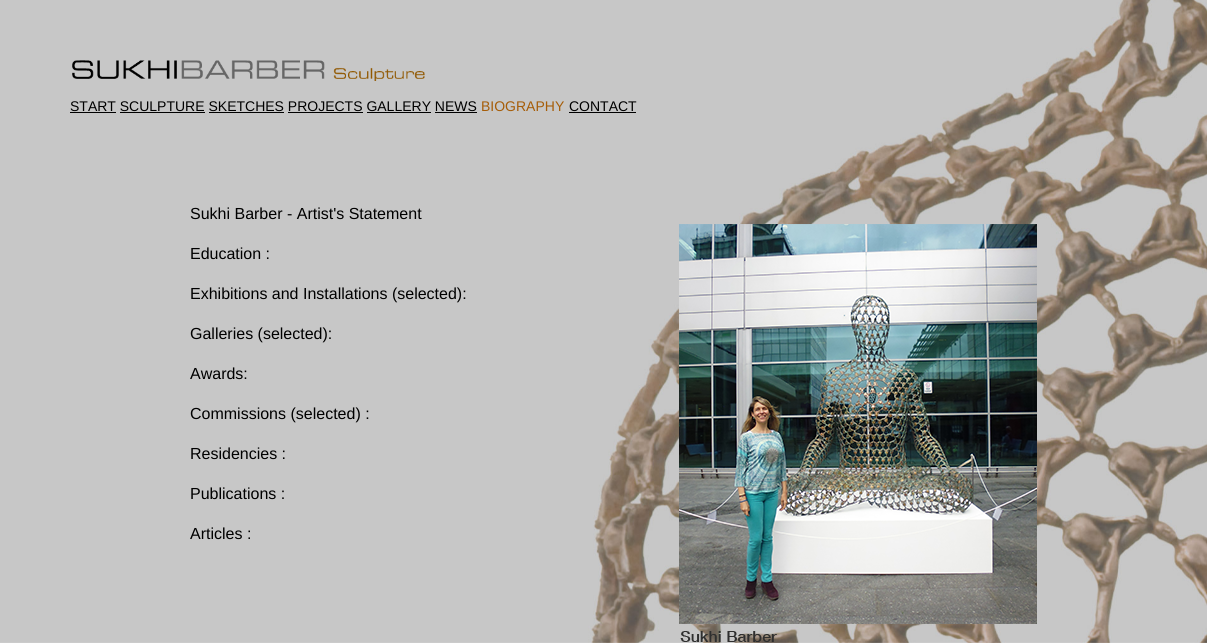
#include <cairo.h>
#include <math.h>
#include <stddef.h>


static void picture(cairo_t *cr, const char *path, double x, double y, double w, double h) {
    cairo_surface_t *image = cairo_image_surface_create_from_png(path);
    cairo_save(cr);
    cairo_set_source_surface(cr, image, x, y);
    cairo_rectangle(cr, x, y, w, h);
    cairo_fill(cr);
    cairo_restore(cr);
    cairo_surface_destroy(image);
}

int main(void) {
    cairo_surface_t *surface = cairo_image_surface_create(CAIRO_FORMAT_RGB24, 1207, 643);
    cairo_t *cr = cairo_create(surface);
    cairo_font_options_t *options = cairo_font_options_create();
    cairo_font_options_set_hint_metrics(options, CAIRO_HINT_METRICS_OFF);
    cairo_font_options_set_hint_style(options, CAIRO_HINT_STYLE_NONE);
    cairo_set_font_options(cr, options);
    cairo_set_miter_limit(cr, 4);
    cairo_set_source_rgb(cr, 1, 1, 1);
    cairo_paint(cr);
    picture(cr, "img1.png", 0, 0, 1207, 643);
    picture(cr, "img2.png", 72, 60, 353, 21);
    cairo_select_font_face(cr, "Liberation Sans", CAIRO_FONT_SLANT_NORMAL, CAIRO_FONT_WEIGHT_NORMAL);
    cairo_set_font_size(cr, 14);
    cairo_set_source_rgb(cr, 0, 0, 0);
    cairo_move_to(cr, 70, 111);
    cairo_show_text(cr, "START SCULPTURE SKETCHES PROJECTS GALLERY NEWS");
    cairo_rectangle(cr, 70, 112, 46, 1);
    cairo_fill(cr);
    cairo_set_source_rgb(cr, 0.651, 0.365, 0.035);
    cairo_move_to(cr, 481, 111);
    cairo_show_text(cr, "BIOGRAPHY");
    cairo_set_source_rgb(cr, 0, 0, 0);
    cairo_move_to(cr, 569, 111);
    cairo_show_text(cr, "CONTACT");
    cairo_rectangle(cr, 569, 112, 67, 1);
    cairo_fill(cr);
    cairo_rectangle(cr, 120, 112, 85, 1);
    cairo_fill(cr);
    cairo_rectangle(cr, 209, 112, 75, 1);
    cairo_fill(cr);
    cairo_rectangle(cr, 288, 112, 75, 1);
    cairo_fill(cr);
    cairo_rectangle(cr, 367, 112, 64, 1);
    cairo_fill(cr);
    cairo_rectangle(cr, 435, 112, 42, 1);
    cairo_fill(cr);
    cairo_set_font_size(cr, 16);
    cairo_move_to(cr, 190, 219);
    cairo_show_text(cr, "Sukhi Barber - Artist's Statement");
    cairo_move_to(cr, 190, 259);
    cairo_show_text(cr, "Education :");
    cairo_move_to(cr, 190, 299);
    cairo_show_text(cr, "Exhibitions and Installations (selected):");
    cairo_move_to(cr, 190, 339);
    cairo_show_text(cr, "Galleries (selected):");
    cairo_move_to(cr, 190, 379);
    cairo_show_text(cr, "Awards:");
    cairo_move_to(cr, 190, 419);
    cairo_show_text(cr, "Commissions (selected) :");
    cairo_move_to(cr, 190, 459);
    cairo_show_text(cr, "Residencies :");
    cairo_move_to(cr, 190, 499);
    cairo_show_text(cr, "Publications :");
    cairo_move_to(cr, 190, 539);
    cairo_show_text(cr, "Articles :");
    picture(cr, "img3.png", 679, 224, 358, 418);
    cairo_surface_write_to_png(surface, "page.png");
    cairo_font_options_destroy(options);
    cairo_destroy(cr);
    cairo_surface_destroy(surface);
    return 0;
}
